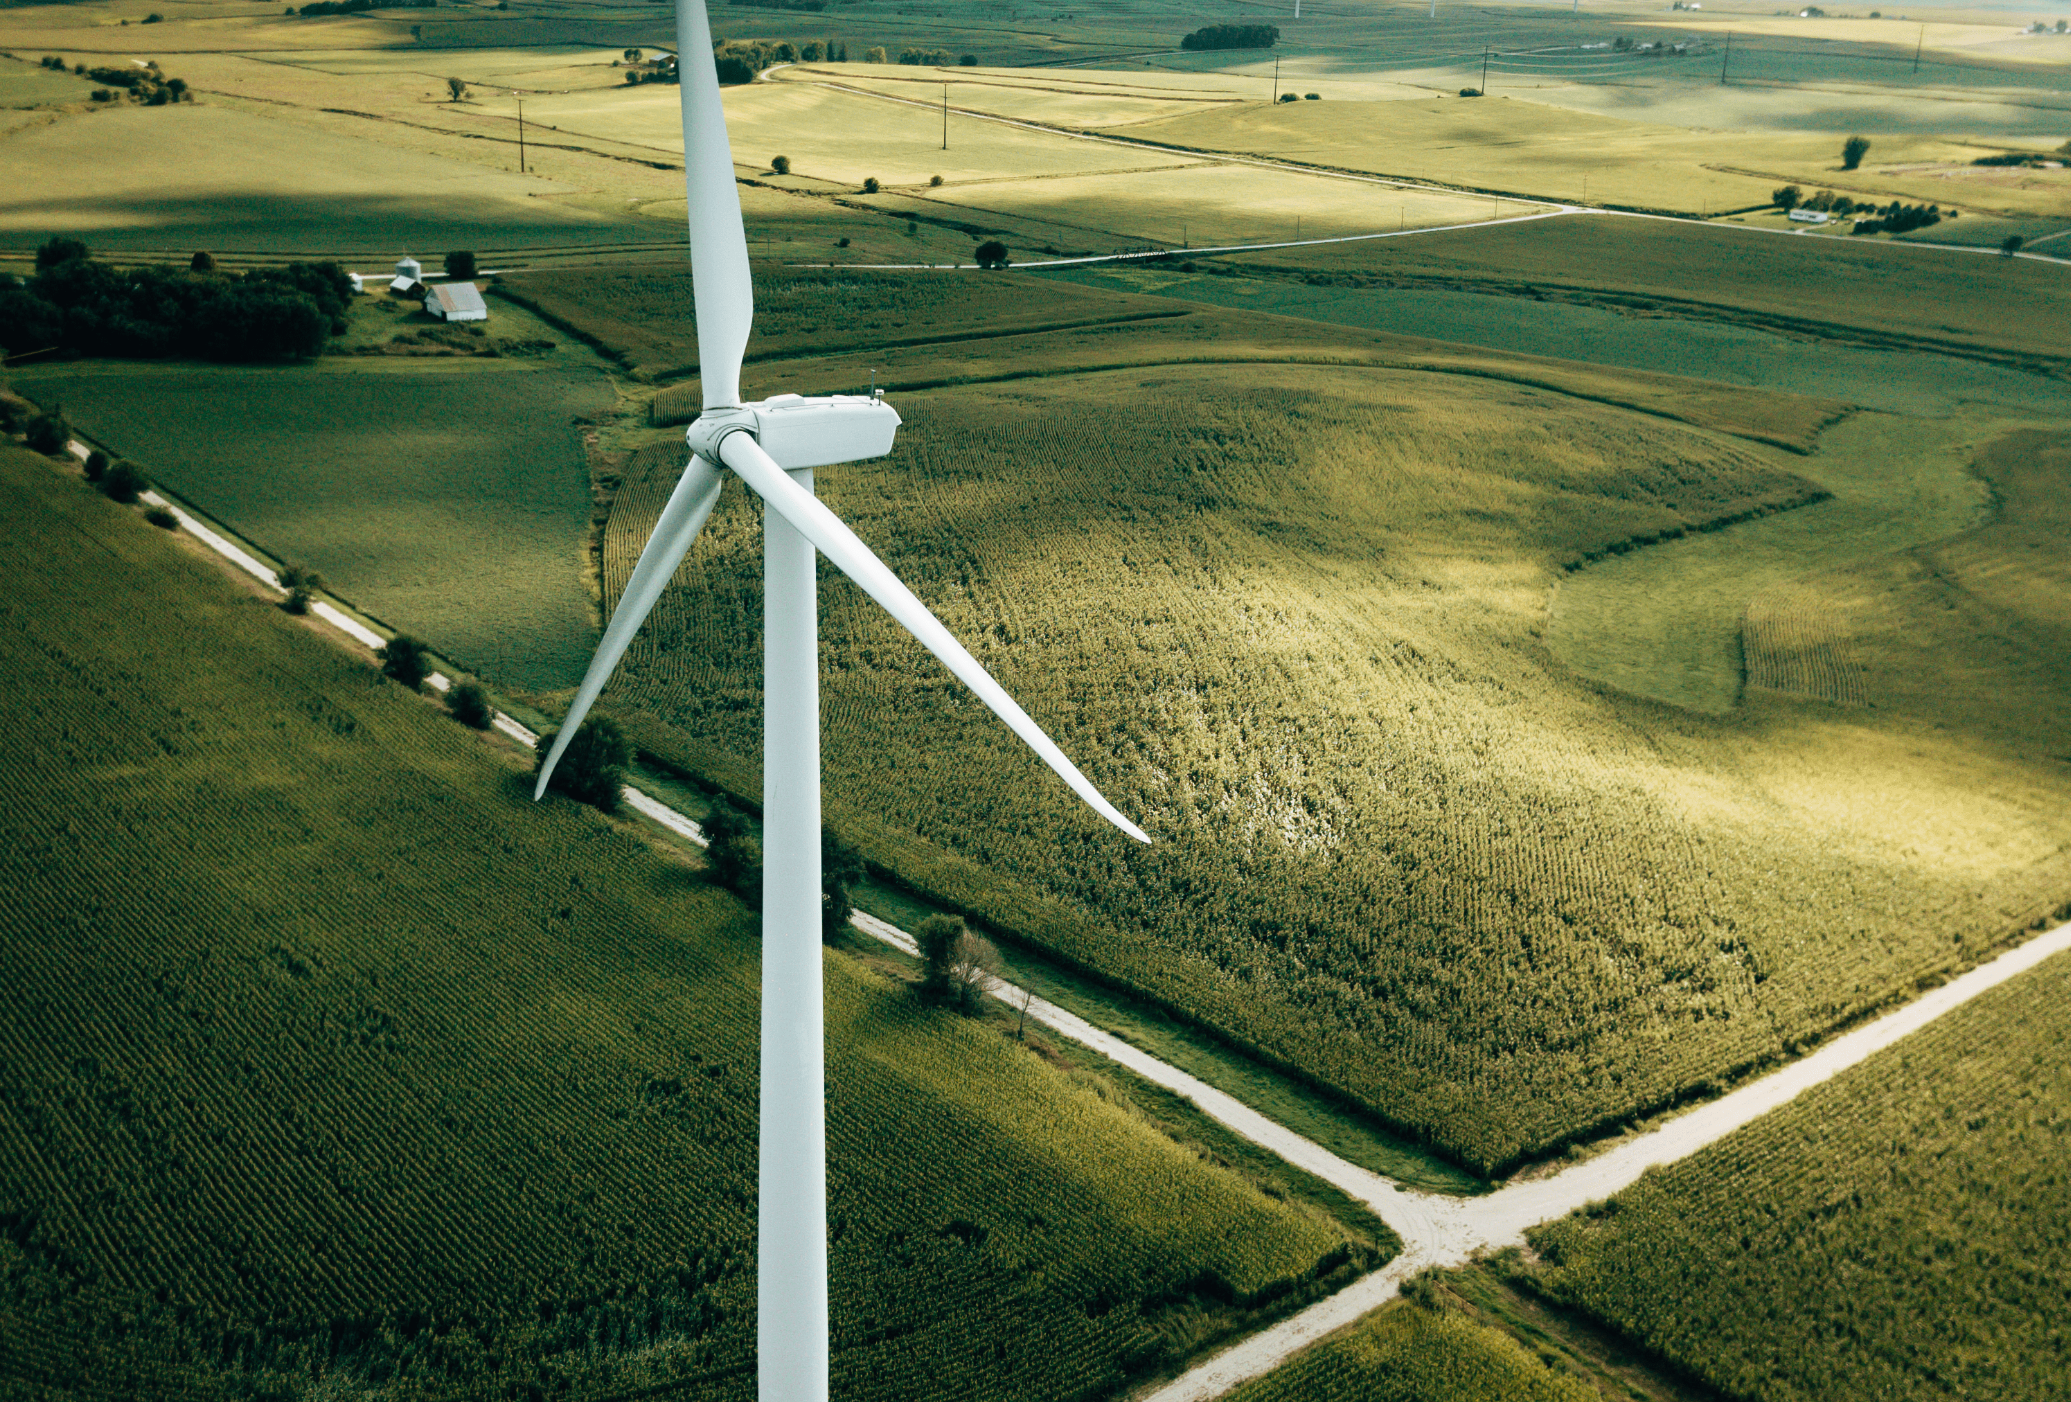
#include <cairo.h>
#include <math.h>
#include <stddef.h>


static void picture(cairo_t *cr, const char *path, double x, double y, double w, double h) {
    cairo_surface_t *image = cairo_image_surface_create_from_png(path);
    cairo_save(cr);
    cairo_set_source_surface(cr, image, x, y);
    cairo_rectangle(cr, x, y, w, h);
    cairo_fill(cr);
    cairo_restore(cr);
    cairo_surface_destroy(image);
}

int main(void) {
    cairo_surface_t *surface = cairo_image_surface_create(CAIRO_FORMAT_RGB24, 2071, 1402);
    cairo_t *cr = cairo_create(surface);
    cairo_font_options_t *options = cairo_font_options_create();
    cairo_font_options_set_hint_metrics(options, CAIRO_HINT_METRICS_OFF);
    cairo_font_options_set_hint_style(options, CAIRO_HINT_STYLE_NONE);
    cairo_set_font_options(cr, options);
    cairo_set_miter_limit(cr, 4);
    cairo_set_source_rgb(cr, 1, 1, 1);
    cairo_paint(cr);
    picture(cr, "img1.png", 0, 0, 2071, 1402);
    cairo_surface_write_to_png(surface, "page.png");
    cairo_font_options_destroy(options);
    cairo_destroy(cr);
    cairo_surface_destroy(surface);
    return 0;
}
